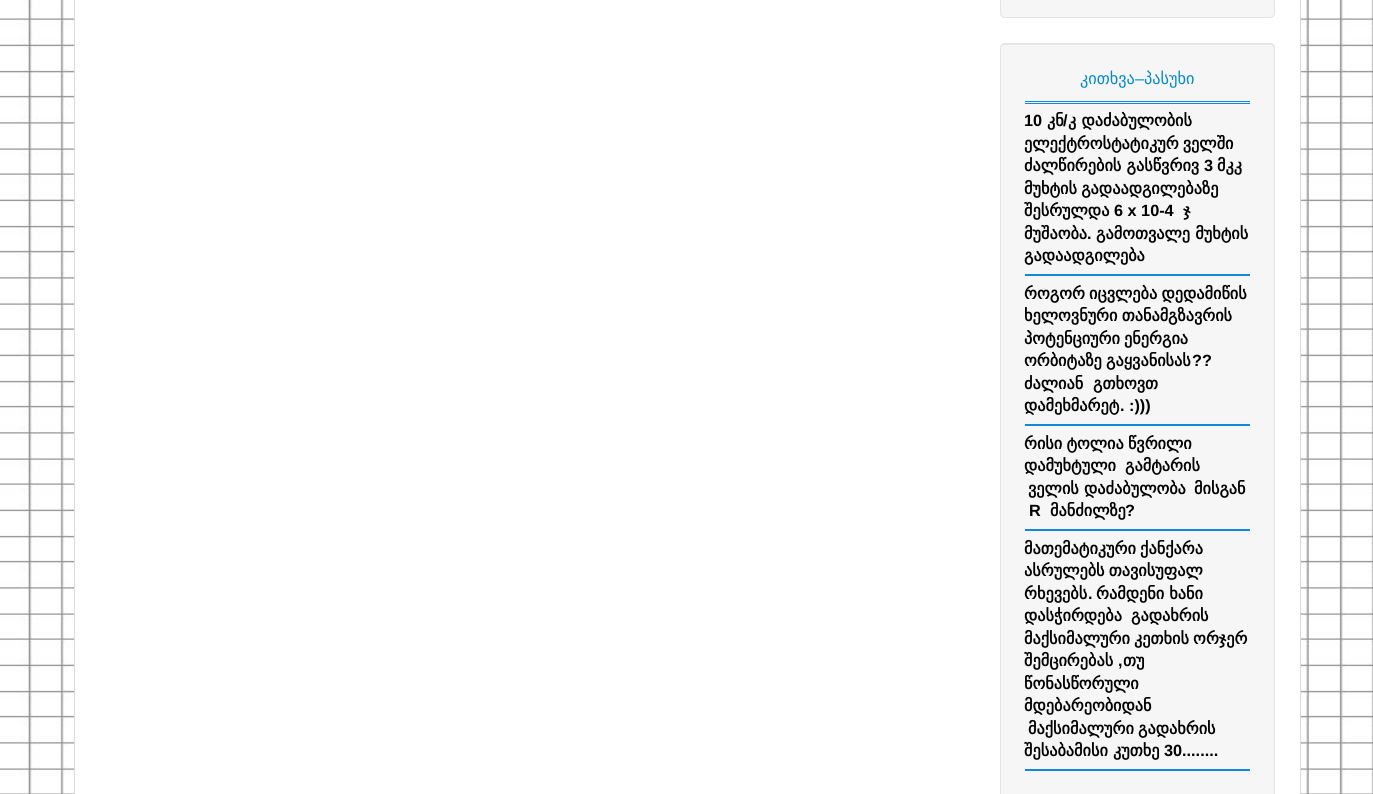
#include <cairo.h>
#include <math.h>
#include <stddef.h>


static void spaced_text(cairo_t *cr, double x, double y, const char *s, double letter, double word) {
    cairo_move_to(cr, x, y);
    while (*s) {
        char ch[5] = {0};
        int n = 0;
        do ch[n++] = *s++; while ((*s & 0xC0) == 0x80);
        cairo_show_text(cr, ch);
        cairo_rel_move_to(cr, letter + word * (*ch == ' '), 0);
    }
}

static void round_rect(cairo_t *cr, double x, double y, double w, double h, double r) {
    cairo_new_sub_path(cr);
    cairo_arc(cr, x + w - r, y + h - r, r, 0, M_PI / 2);
    cairo_arc(cr, x + r, y + h - r, r, M_PI / 2, M_PI);
    cairo_arc(cr, x + r, y + r, r, M_PI, 1.5 * M_PI);
    cairo_arc(cr, x + w - r, y + r, r, 1.5 * M_PI, 2 * M_PI);
    cairo_close_path(cr);
}

static void picture(cairo_t *cr, const char *path, double x, double y, double w, double h) {
    cairo_surface_t *image = cairo_image_surface_create_from_png(path);
    cairo_save(cr);
    cairo_set_source_surface(cr, image, x, y);
    cairo_rectangle(cr, x, y, w, h);
    cairo_fill(cr);
    cairo_restore(cr);
    cairo_surface_destroy(image);
}

int main(void) {
    cairo_surface_t *surface = cairo_image_surface_create(CAIRO_FORMAT_RGB24, 1373, 794);
    cairo_t *cr = cairo_create(surface);
    cairo_font_options_t *options = cairo_font_options_create();
    cairo_font_options_set_hint_metrics(options, CAIRO_HINT_METRICS_OFF);
    cairo_font_options_set_hint_style(options, CAIRO_HINT_STYLE_NONE);
    cairo_set_font_options(cr, options);
    cairo_set_miter_limit(cr, 4);
    cairo_set_source_rgb(cr, 1, 1, 1);
    cairo_paint(cr);
    picture(cr, "img1.png", 0, 0, 1373, 794);
    cairo_set_source_rgb(cr, 1, 1, 1);
    cairo_rectangle(cr, 74.5, -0.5, 1226, 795);
    cairo_fill_preserve(cr);
    cairo_set_source_rgb(cr, 0.851, 0.851, 0.851);
    cairo_set_line_width(cr, 1);
    cairo_stroke(cr);
    cairo_set_source_rgb(cr, 0.961, 0.961, 0.961);
    round_rect(cr, 1000.5, -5.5, 274, 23, 4.5);
    cairo_fill_preserve(cr);
    cairo_set_source_rgb(cr, 0.89, 0.89, 0.89);
    cairo_stroke(cr);
    cairo_set_source_rgb(cr, 0.961, 0.961, 0.961);
    round_rect(cr, 1000, 43, 275, 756, 5);
    cairo_fill(cr);
    cairo_set_source_rgb(cr, 0.914, 0.914, 0.914);
    cairo_new_path(cr);
    cairo_move_to(cr, 1005, 45);
    cairo_line_to(cr, 1270, 45);
    cairo_curve_to(cr, 1272, 45, 1274, 47, 1274, 49);
    cairo_curve_to(cr, 1274, 46, 1273, 44, 1270, 44);
    cairo_line_to(cr, 1005, 44);
    cairo_curve_to(cr, 1002, 44, 1001, 46, 1001, 49);
    cairo_curve_to(cr, 1001, 47, 1003, 45, 1005, 45);
    cairo_close_path(cr);
    cairo_fill(cr);
    round_rect(cr, 1000.5, 43.5, 274, 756, 4.5);
    cairo_set_source_rgb(cr, 0.89, 0.89, 0.89);
    cairo_stroke(cr);
    cairo_select_font_face(cr, "DejaVu Sans", CAIRO_FONT_SLANT_NORMAL, CAIRO_FONT_WEIGHT_NORMAL);
    cairo_set_font_size(cr, 16.25);
    cairo_set_source_rgb(cr, 0, 0.533, 0.8);
    cairo_move_to(cr, 1080, 84);
    cairo_show_text(cr, "კითხვა");
    cairo_select_font_face(cr, "Liberation Sans", CAIRO_FONT_SLANT_NORMAL, CAIRO_FONT_WEIGHT_NORMAL);
    cairo_move_to(cr, 1135, 84);
    cairo_show_text(cr, "–");
    cairo_select_font_face(cr, "DejaVu Sans", CAIRO_FONT_SLANT_NORMAL, CAIRO_FONT_WEIGHT_NORMAL);
    cairo_move_to(cr, 1144, 84);
    cairo_show_text(cr, "პასუხი");
    cairo_set_source_rgb(cr, 0.059, 0.541, 0.859);
    cairo_rectangle(cr, 1025, 101, 225, 1);
    cairo_fill(cr);
    cairo_rectangle(cr, 1025, 103, 225, 1);
    cairo_fill(cr);
    cairo_select_font_face(cr, "Liberation Sans", CAIRO_FONT_SLANT_NORMAL, CAIRO_FONT_WEIGHT_BOLD);
    cairo_set_source_rgb(cr, 0, 0, 0);
    cairo_move_to(cr, 1024, 126);
    cairo_show_text(cr, "10");
    cairo_select_font_face(cr, "DejaVu Sans", CAIRO_FONT_SLANT_NORMAL, CAIRO_FONT_WEIGHT_BOLD);
    cairo_move_to(cr, 1047, 126);
    cairo_show_text(cr, "კნ");
    cairo_select_font_face(cr, "Liberation Sans", CAIRO_FONT_SLANT_NORMAL, CAIRO_FONT_WEIGHT_BOLD);
    cairo_move_to(cr, 1063, 126);
    cairo_show_text(cr, "/");
    cairo_select_font_face(cr, "DejaVu Sans", CAIRO_FONT_SLANT_NORMAL, CAIRO_FONT_WEIGHT_BOLD);
    cairo_move_to(cr, 1068, 126);
    cairo_show_text(cr, "კ დაძაბულობის");
    spaced_text(cr, 1024, 149, "ელექტროსტატიკურ ველში", 0, -1);
    cairo_move_to(cr, 1024, 171);
    cairo_show_text(cr, "ძალწირების გასწვრივ");
    cairo_select_font_face(cr, "Liberation Sans", CAIRO_FONT_SLANT_NORMAL, CAIRO_FONT_WEIGHT_BOLD);
    cairo_move_to(cr, 1204, 171);
    cairo_show_text(cr, "3");
    cairo_select_font_face(cr, "DejaVu Sans", CAIRO_FONT_SLANT_NORMAL, CAIRO_FONT_WEIGHT_BOLD);
    cairo_move_to(cr, 1217, 171);
    cairo_show_text(cr, "მკკ");
    spaced_text(cr, 1024, 194, "მუხტის გადაადგილებაზე", 0, -1);
    cairo_move_to(cr, 1024, 216);
    cairo_show_text(cr, "შესრულდა");
    cairo_select_font_face(cr, "Liberation Sans", CAIRO_FONT_SLANT_NORMAL, CAIRO_FONT_WEIGHT_BOLD);
    cairo_move_to(cr, 1114, 216);
    cairo_show_text(cr, "6 x 10-4");
    cairo_select_font_face(cr, "DejaVu Sans", CAIRO_FONT_SLANT_NORMAL, CAIRO_FONT_WEIGHT_BOLD);
    cairo_move_to(cr, 1183, 216);
    cairo_show_text(cr, "ჯ");
    cairo_move_to(cr, 1024, 239);
    cairo_show_text(cr, "მუშაობა");
    cairo_select_font_face(cr, "Liberation Sans", CAIRO_FONT_SLANT_NORMAL, CAIRO_FONT_WEIGHT_BOLD);
    cairo_move_to(cr, 1087, 239);
    cairo_show_text(cr, ".");
    cairo_select_font_face(cr, "DejaVu Sans", CAIRO_FONT_SLANT_NORMAL, CAIRO_FONT_WEIGHT_BOLD);
    cairo_move_to(cr, 1096, 239);
    cairo_show_text(cr, "გამოთვალე მუხტის");
    cairo_move_to(cr, 1024, 261);
    cairo_show_text(cr, "გადაადგილება");
    cairo_set_source_rgb(cr, 0.059, 0.541, 0.859);
    cairo_rectangle(cr, 1025, 274, 225, 2);
    cairo_fill(cr);
    cairo_set_source_rgb(cr, 0, 0, 0);
    spaced_text(cr, 1024, 299, "როგორ იცვლება დედამიწის", 0, -1);
    spaced_text(cr, 1024, 321, "ხელოვნური თანამგზავრის", 0, -1);
    spaced_text(cr, 1024, 344, "პოტენციური ენერგია", 0, -1);
    spaced_text(cr, 1024, 366, "ორბიტაზე გაყვანისას", 0, -1);
    cairo_select_font_face(cr, "Liberation Sans", CAIRO_FONT_SLANT_NORMAL, CAIRO_FONT_WEIGHT_BOLD);
    cairo_move_to(cr, 1192, 366);
    cairo_show_text(cr, "?\077");
    cairo_select_font_face(cr, "DejaVu Sans", CAIRO_FONT_SLANT_NORMAL, CAIRO_FONT_WEIGHT_BOLD);
    cairo_move_to(cr, 1024, 389);
    cairo_show_text(cr, "ძალიან");
    cairo_move_to(cr, 1093, 389);
    cairo_show_text(cr, "გთხოვთ");
    cairo_move_to(cr, 1024, 411);
    cairo_show_text(cr, "დამეხმარეტ");
    cairo_select_font_face(cr, "Liberation Sans", CAIRO_FONT_SLANT_NORMAL, CAIRO_FONT_WEIGHT_BOLD);
    cairo_move_to(cr, 1120, 411);
    cairo_show_text(cr, ". :)))");
    cairo_set_source_rgb(cr, 0.059, 0.541, 0.859);
    cairo_rectangle(cr, 1025, 424, 225, 2);
    cairo_fill(cr);
    cairo_select_font_face(cr, "DejaVu Sans", CAIRO_FONT_SLANT_NORMAL, CAIRO_FONT_WEIGHT_BOLD);
    cairo_set_source_rgb(cr, 0, 0, 0);
    spaced_text(cr, 1024, 449, "რისი ტოლია წვრილი", 0, -1);
    cairo_move_to(cr, 1024, 471);
    cairo_show_text(cr, "დამუხტული");
    cairo_move_to(cr, 1125, 471);
    cairo_show_text(cr, "გამტარის");
    cairo_move_to(cr, 1028, 494);
    cairo_show_text(cr, "ველის დაძაბულობა");
    cairo_move_to(cr, 1194, 494);
    cairo_show_text(cr, "მისგან");
    cairo_select_font_face(cr, "Liberation Sans", CAIRO_FONT_SLANT_NORMAL, CAIRO_FONT_WEIGHT_BOLD);
    cairo_move_to(cr, 1029, 516);
    cairo_show_text(cr, "R");
    cairo_select_font_face(cr, "DejaVu Sans", CAIRO_FONT_SLANT_NORMAL, CAIRO_FONT_WEIGHT_BOLD);
    cairo_move_to(cr, 1050, 516);
    cairo_show_text(cr, "მანძილზე");
    cairo_select_font_face(cr, "Liberation Sans", CAIRO_FONT_SLANT_NORMAL, CAIRO_FONT_WEIGHT_BOLD);
    cairo_move_to(cr, 1125, 516);
    cairo_show_text(cr, "?");
    cairo_set_source_rgb(cr, 0.059, 0.541, 0.859);
    cairo_rectangle(cr, 1025, 529, 225, 2);
    cairo_fill(cr);
    cairo_select_font_face(cr, "DejaVu Sans", CAIRO_FONT_SLANT_NORMAL, CAIRO_FONT_WEIGHT_BOLD);
    cairo_set_source_rgb(cr, 0, 0, 0);
    spaced_text(cr, 1024, 554, "მათემატიკური ქანქარა", 0, -1);
    spaced_text(cr, 1024, 576, "ასრულებს თავისუფალ", 0, -1);
    cairo_move_to(cr, 1024, 599);
    cairo_show_text(cr, "რხევებს");
    cairo_select_font_face(cr, "Liberation Sans", CAIRO_FONT_SLANT_NORMAL, CAIRO_FONT_WEIGHT_BOLD);
    cairo_move_to(cr, 1088, 599);
    cairo_show_text(cr, ".");
    cairo_select_font_face(cr, "DejaVu Sans", CAIRO_FONT_SLANT_NORMAL, CAIRO_FONT_WEIGHT_BOLD);
    cairo_move_to(cr, 1096, 599);
    cairo_show_text(cr, "რამდენი ხანი");
    cairo_move_to(cr, 1024, 621);
    cairo_show_text(cr, "დასჭირდება");
    cairo_move_to(cr, 1131, 621);
    cairo_show_text(cr, "გადახრის");
    spaced_text(cr, 1024, 644, "მაქსიმალური კეთხის ორჯერ", 0, -1);
    cairo_move_to(cr, 1024, 666);
    cairo_show_text(cr, "შემცირებას");
    cairo_select_font_face(cr, "Liberation Sans", CAIRO_FONT_SLANT_NORMAL, CAIRO_FONT_WEIGHT_BOLD);
    cairo_move_to(cr, 1118, 666);
    cairo_show_text(cr, ",");
    cairo_select_font_face(cr, "DejaVu Sans", CAIRO_FONT_SLANT_NORMAL, CAIRO_FONT_WEIGHT_BOLD);
    cairo_move_to(cr, 1123, 666);
    cairo_show_text(cr, "თუ");
    cairo_move_to(cr, 1024, 689);
    cairo_show_text(cr, "წონასწორული");
    cairo_move_to(cr, 1024, 711);
    cairo_show_text(cr, "მდებარეობიდან");
    spaced_text(cr, 1028, 734, "მაქსიმალური გადახრის", 0, -1);
    cairo_move_to(cr, 1024, 756);
    cairo_show_text(cr, "შესაბამისი კუთხე");
    cairo_select_font_face(cr, "Liberation Sans", CAIRO_FONT_SLANT_NORMAL, CAIRO_FONT_WEIGHT_BOLD);
    cairo_move_to(cr, 1164, 756);
    cairo_show_text(cr, "30........");
    cairo_set_source_rgb(cr, 0.059, 0.541, 0.859);
    cairo_rectangle(cr, 1025, 769, 225, 2);
    cairo_fill(cr);
    cairo_surface_write_to_png(surface, "page.png");
    cairo_font_options_destroy(options);
    cairo_destroy(cr);
    cairo_surface_destroy(surface);
    return 0;
}
